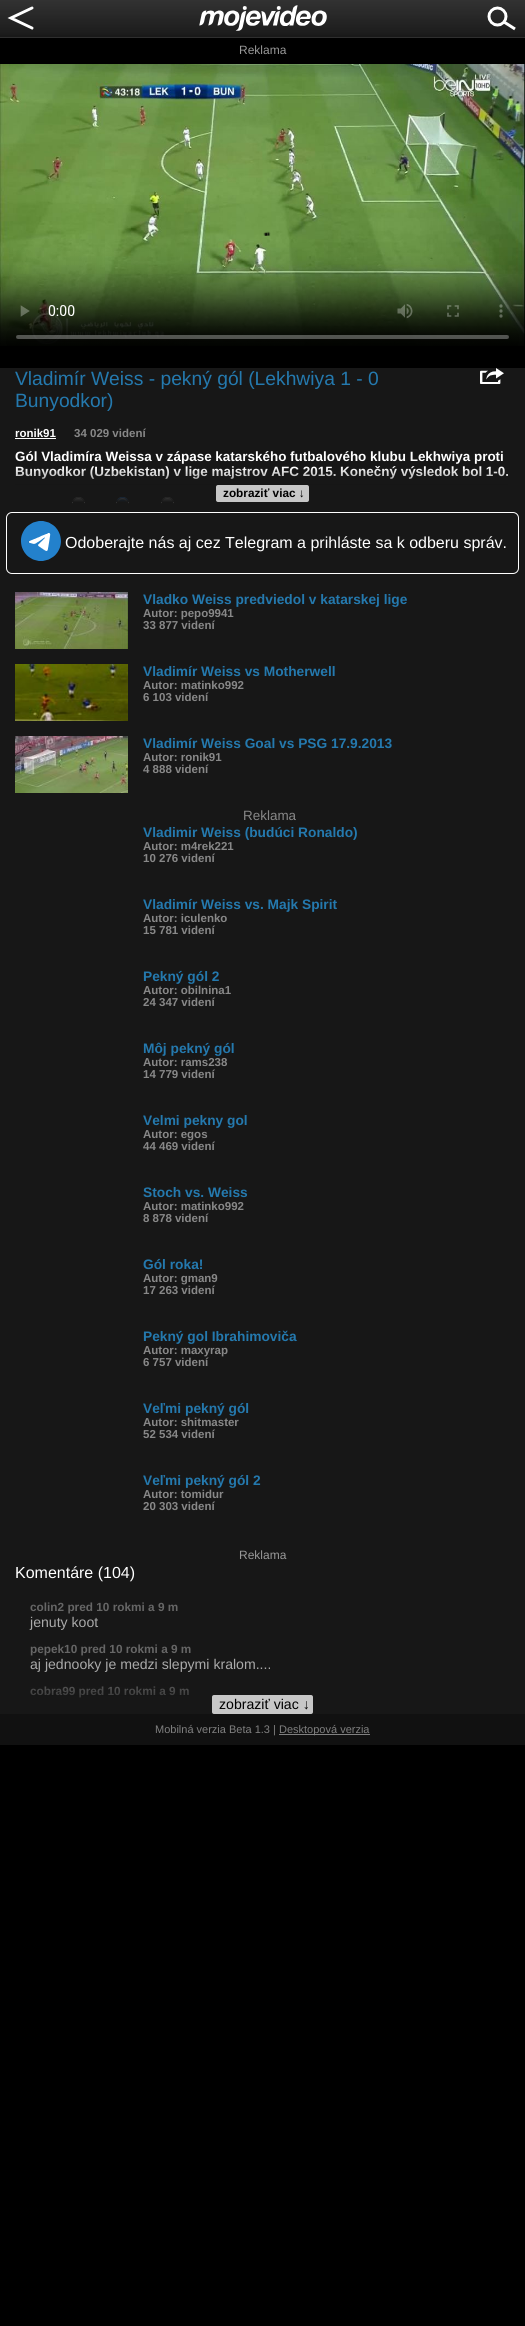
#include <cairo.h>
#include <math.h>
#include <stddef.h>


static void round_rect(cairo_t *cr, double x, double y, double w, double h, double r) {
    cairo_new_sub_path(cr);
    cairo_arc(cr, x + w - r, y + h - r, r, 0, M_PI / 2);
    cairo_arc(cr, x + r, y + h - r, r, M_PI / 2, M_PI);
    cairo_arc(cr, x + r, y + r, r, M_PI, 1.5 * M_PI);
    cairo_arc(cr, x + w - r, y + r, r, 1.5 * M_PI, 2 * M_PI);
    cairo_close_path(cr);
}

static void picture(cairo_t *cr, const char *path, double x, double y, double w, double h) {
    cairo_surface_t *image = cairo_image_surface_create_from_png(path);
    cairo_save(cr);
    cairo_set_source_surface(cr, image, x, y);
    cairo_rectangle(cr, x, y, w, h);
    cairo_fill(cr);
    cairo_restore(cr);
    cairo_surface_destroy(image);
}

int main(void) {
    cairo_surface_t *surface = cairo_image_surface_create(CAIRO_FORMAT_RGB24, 525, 2326);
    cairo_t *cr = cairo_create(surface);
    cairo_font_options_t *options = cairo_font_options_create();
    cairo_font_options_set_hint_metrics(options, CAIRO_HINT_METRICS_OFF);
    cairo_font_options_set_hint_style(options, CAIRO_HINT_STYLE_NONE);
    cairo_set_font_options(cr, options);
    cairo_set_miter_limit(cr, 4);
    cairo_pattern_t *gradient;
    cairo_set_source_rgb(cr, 0, 0, 0);
    cairo_paint(cr);
    picture(cr, "img1.png", 0, 0, 525, 38);
    picture(cr, "img2.png", 7, 6, 27, 24);
    picture(cr, "img3.png", 199, 5, 128, 26);
    picture(cr, "img4.png", 487, 6, 29, 25);
    cairo_select_font_face(cr, "Liberation Sans", CAIRO_FONT_SLANT_NORMAL, CAIRO_FONT_WEIGHT_NORMAL);
    cairo_set_font_size(cr, 12);
    cairo_set_source_rgb(cr, 0.6, 0.6, 0.6);
    cairo_move_to(cr, 239, 54);
    cairo_show_text(cr, "Reklama");
    picture(cr, "img5.png", 0, 64, 525, 282);
    cairo_set_source_rgb(cr, 0.09, 0.09, 0.09);
    cairo_rectangle(cr, 0, 368, 525, 1346);
    cairo_fill(cr);
    cairo_set_font_size(cr, 19.25);
    cairo_set_source_rgb(cr, 0.141, 0.475, 0.682);
    cairo_move_to(cr, 15, 385);
    cairo_show_text(cr, "Vladimír Weiss - pekný gól (Lekhwiya 1 - 0");
    cairo_move_to(cr, 15, 407);
    cairo_show_text(cr, "Bunyodkor)");
    picture(cr, "img6.png", 480, 368, 24, 16);
    cairo_select_font_face(cr, "Liberation Sans", CAIRO_FONT_SLANT_NORMAL, CAIRO_FONT_WEIGHT_BOLD);
    cairo_set_font_size(cr, 11.5);
    cairo_set_source_rgb(cr, 1, 1, 1);
    cairo_move_to(cr, 15, 437);
    cairo_show_text(cr, "ronik91");
    cairo_rectangle(cr, 15, 438, 41, 1);
    cairo_fill(cr);
    cairo_set_source_rgb(cr, 0.533, 0.533, 0.533);
    cairo_move_to(cr, 74, 437);
    cairo_show_text(cr, "34 029 videní");
    cairo_set_font_size(cr, 13.45);
    cairo_set_source_rgb(cr, 1, 1, 1);
    cairo_move_to(cr, 15, 461);
    cairo_show_text(cr, "Gól Vladimíra Weissa v zápase katarského futbalového klubu Lekhwiya proti");
    cairo_move_to(cr, 15, 476);
    cairo_show_text(cr, "Bunyodkor (Uzbekistan) v lige majstrov AFC 2015. Konečný výsledok bol 1-0.");
    cairo_new_path(cr);
    cairo_move_to(cr, 78.5, 497);
    cairo_curve_to(cr, 82, 497, 85, 500, 85, 503.5);
    cairo_line_to(cr, 85, 502);
    cairo_line_to(cr, 72, 502);
    cairo_line_to(cr, 72, 503.5);
    cairo_curve_to(cr, 72, 500, 75, 497, 78.5, 497);
    cairo_close_path(cr);
    cairo_fill(cr);
    cairo_save(cr);
    cairo_rectangle(cr, 0, 412, 525, 90);
    cairo_clip(cr);
    cairo_arc(cr, 78.5, 503.5, 6, 0, 2 * M_PI);
    cairo_set_source_rgb(cr, 0.463, 0.463, 0.463);
    cairo_set_line_width(cr, 1);
    cairo_stroke(cr);
    cairo_restore(cr);
    cairo_new_path(cr);
    cairo_move_to(cr, 122.5, 497);
    cairo_curve_to(cr, 126, 497, 129, 500, 129, 503.5);
    cairo_line_to(cr, 129, 502);
    cairo_line_to(cr, 116, 502);
    cairo_line_to(cr, 116, 503.5);
    cairo_curve_to(cr, 116, 500, 119, 497, 122.5, 497);
    cairo_close_path(cr);
    cairo_fill(cr);
    cairo_save(cr);
    cairo_rectangle(cr, 0, 412, 525, 90);
    cairo_clip(cr);
    cairo_arc(cr, 122.5, 503.5, 6, 0, 2 * M_PI);
    cairo_set_source_rgb(cr, 0, 0.459, 1);
    cairo_set_line_width(cr, 1);
    cairo_stroke(cr);
    cairo_arc(cr, 122.5, 503.5, 4, 0, 2 * M_PI);
    cairo_fill(cr);
    cairo_restore(cr);
    cairo_new_path(cr);
    cairo_move_to(cr, 167.5, 497);
    cairo_curve_to(cr, 171, 497, 174, 500, 174, 503.5);
    cairo_line_to(cr, 174, 502);
    cairo_line_to(cr, 161, 502);
    cairo_line_to(cr, 161, 503.5);
    cairo_curve_to(cr, 161, 500, 164, 497, 167.5, 497);
    cairo_close_path(cr);
    cairo_fill(cr);
    cairo_save(cr);
    cairo_rectangle(cr, 0, 412, 525, 90);
    cairo_clip(cr);
    cairo_arc(cr, 167.5, 503.5, 6, 0, 2 * M_PI);
    cairo_set_source_rgb(cr, 0.463, 0.463, 0.463);
    cairo_set_line_width(cr, 1);
    cairo_stroke(cr);
    cairo_restore(cr);
    gradient = cairo_pattern_create_linear(263, 467, 263, 502);
    cairo_pattern_add_color_stop_rgba(gradient, 0, 0.09, 0.09, 0.09, 0);
    cairo_pattern_add_color_stop_rgba(gradient, 1, 0.09, 0.09, 0.09, 1);
    cairo_set_source(cr, gradient);
    cairo_pattern_destroy(gradient);
    cairo_rectangle(cr, 15, 468, 493, 34);
    cairo_fill(cr);
    cairo_set_source_rgb(cr, 0.78, 0.78, 0.78);
    round_rect(cr, 216, 485, 93, 17, 2);
    cairo_fill(cr);
    cairo_set_font_size(cr, 11.8);
    cairo_set_source_rgb(cr, 0, 0, 0);
    cairo_move_to(cr, 223, 497);
    cairo_show_text(cr, "zobraziť viac ↓");
    round_rect(cr, 6.5, 512.5, 512, 61, 5.5);
    cairo_set_source_rgb(cr, 1, 1, 1);
    cairo_set_line_width(cr, 1);
    cairo_stroke(cr);
    picture(cr, "img7.png", 21, 521, 40, 40);
    cairo_select_font_face(cr, "Liberation Sans", CAIRO_FONT_SLANT_NORMAL, CAIRO_FONT_WEIGHT_NORMAL);
    cairo_set_font_size(cr, 16);
    cairo_move_to(cr, 65, 548);
    cairo_show_text(cr, "Odoberajte nás aj cez Telegram a prihláste sa k odberu správ.");
    picture(cr, "img8.png", 15, 592, 113, 57);
    cairo_select_font_face(cr, "Liberation Sans", CAIRO_FONT_SLANT_NORMAL, CAIRO_FONT_WEIGHT_BOLD);
    cairo_set_font_size(cr, 13.75);
    cairo_set_source_rgb(cr, 0.141, 0.475, 0.682);
    cairo_move_to(cr, 143, 604);
    cairo_show_text(cr, "Vladko Weiss predviedol v katarskej lige");
    cairo_set_font_size(cr, 11.5);
    cairo_set_source_rgb(cr, 0.533, 0.533, 0.533);
    cairo_move_to(cr, 143, 617);
    cairo_show_text(cr, "Autor: pepo9941");
    cairo_move_to(cr, 143, 629);
    cairo_show_text(cr, "33 877 videní");
    picture(cr, "img9.png", 15, 664, 113, 57);
    cairo_set_font_size(cr, 13.75);
    cairo_set_source_rgb(cr, 0.141, 0.475, 0.682);
    cairo_move_to(cr, 143, 676);
    cairo_show_text(cr, "Vladimír Weiss vs Motherwell");
    cairo_set_font_size(cr, 11.5);
    cairo_set_source_rgb(cr, 0.533, 0.533, 0.533);
    cairo_move_to(cr, 143, 689);
    cairo_show_text(cr, "Autor: matinko992");
    cairo_move_to(cr, 143, 701);
    cairo_show_text(cr, "6 103 videní");
    picture(cr, "img10.png", 15, 736, 113, 57);
    cairo_set_font_size(cr, 13.75);
    cairo_set_source_rgb(cr, 0.141, 0.475, 0.682);
    cairo_move_to(cr, 143, 748);
    cairo_show_text(cr, "Vladimír Weiss Goal vs PSG 17.9.2013");
    cairo_set_font_size(cr, 11.5);
    cairo_set_source_rgb(cr, 0.533, 0.533, 0.533);
    cairo_move_to(cr, 143, 761);
    cairo_show_text(cr, "Autor: ronik91");
    cairo_move_to(cr, 143, 773);
    cairo_show_text(cr, "4 888 videní");
    cairo_select_font_face(cr, "Liberation Sans", CAIRO_FONT_SLANT_NORMAL, CAIRO_FONT_WEIGHT_NORMAL);
    cairo_set_font_size(cr, 13.45);
    cairo_move_to(cr, 243, 820);
    cairo_show_text(cr, "Reklama");
    cairo_select_font_face(cr, "Liberation Sans", CAIRO_FONT_SLANT_NORMAL, CAIRO_FONT_WEIGHT_BOLD);
    cairo_set_font_size(cr, 13.75);
    cairo_set_source_rgb(cr, 0.141, 0.475, 0.682);
    cairo_move_to(cr, 143, 837);
    cairo_show_text(cr, "Vladimir Weiss (budúci Ronaldo)");
    cairo_set_font_size(cr, 11.5);
    cairo_set_source_rgb(cr, 0.533, 0.533, 0.533);
    cairo_move_to(cr, 143, 850);
    cairo_show_text(cr, "Autor: m4rek221");
    cairo_move_to(cr, 143, 862);
    cairo_show_text(cr, "10 276 videní");
    cairo_set_font_size(cr, 13.75);
    cairo_set_source_rgb(cr, 0.141, 0.475, 0.682);
    cairo_move_to(cr, 143, 909);
    cairo_show_text(cr, "Vladimír Weiss vs. Majk Spirit");
    cairo_set_font_size(cr, 11.5);
    cairo_set_source_rgb(cr, 0.533, 0.533, 0.533);
    cairo_move_to(cr, 143, 922);
    cairo_show_text(cr, "Autor: iculenko");
    cairo_move_to(cr, 143, 934);
    cairo_show_text(cr, "15 781 videní");
    cairo_set_font_size(cr, 13.75);
    cairo_set_source_rgb(cr, 0.141, 0.475, 0.682);
    cairo_move_to(cr, 143, 981);
    cairo_show_text(cr, "Pekný gól 2");
    cairo_set_font_size(cr, 11.5);
    cairo_set_source_rgb(cr, 0.533, 0.533, 0.533);
    cairo_move_to(cr, 143, 994);
    cairo_show_text(cr, "Autor: obilnina1");
    cairo_move_to(cr, 143, 1006);
    cairo_show_text(cr, "24 347 videní");
    cairo_set_font_size(cr, 13.75);
    cairo_set_source_rgb(cr, 0.141, 0.475, 0.682);
    cairo_move_to(cr, 143, 1053);
    cairo_show_text(cr, "Môj pekný gól");
    cairo_set_font_size(cr, 11.5);
    cairo_set_source_rgb(cr, 0.533, 0.533, 0.533);
    cairo_move_to(cr, 143, 1066);
    cairo_show_text(cr, "Autor: rams238");
    cairo_move_to(cr, 143, 1078);
    cairo_show_text(cr, "14 779 videní");
    cairo_set_font_size(cr, 13.75);
    cairo_set_source_rgb(cr, 0.141, 0.475, 0.682);
    cairo_move_to(cr, 143, 1125);
    cairo_show_text(cr, "Velmi pekny gol");
    cairo_set_font_size(cr, 11.5);
    cairo_set_source_rgb(cr, 0.533, 0.533, 0.533);
    cairo_move_to(cr, 143, 1138);
    cairo_show_text(cr, "Autor: egos");
    cairo_move_to(cr, 143, 1150);
    cairo_show_text(cr, "44 469 videní");
    cairo_set_font_size(cr, 13.75);
    cairo_set_source_rgb(cr, 0.141, 0.475, 0.682);
    cairo_move_to(cr, 143, 1197);
    cairo_show_text(cr, "Stoch vs. Weiss");
    cairo_set_font_size(cr, 11.5);
    cairo_set_source_rgb(cr, 0.533, 0.533, 0.533);
    cairo_move_to(cr, 143, 1210);
    cairo_show_text(cr, "Autor: matinko992");
    cairo_move_to(cr, 143, 1222);
    cairo_show_text(cr, "8 878 videní");
    cairo_set_font_size(cr, 13.75);
    cairo_set_source_rgb(cr, 0.141, 0.475, 0.682);
    cairo_move_to(cr, 143, 1269);
    cairo_show_text(cr, "Gól roka!");
    cairo_set_font_size(cr, 11.5);
    cairo_set_source_rgb(cr, 0.533, 0.533, 0.533);
    cairo_move_to(cr, 143, 1282);
    cairo_show_text(cr, "Autor: gman9");
    cairo_move_to(cr, 143, 1294);
    cairo_show_text(cr, "17 263 videní");
    cairo_set_font_size(cr, 13.75);
    cairo_set_source_rgb(cr, 0.141, 0.475, 0.682);
    cairo_move_to(cr, 143, 1341);
    cairo_show_text(cr, "Pekný gol Ibrahimoviča");
    cairo_set_font_size(cr, 11.5);
    cairo_set_source_rgb(cr, 0.533, 0.533, 0.533);
    cairo_move_to(cr, 143, 1354);
    cairo_show_text(cr, "Autor: maxyrap");
    cairo_move_to(cr, 143, 1366);
    cairo_show_text(cr, "6 757 videní");
    cairo_set_font_size(cr, 13.75);
    cairo_set_source_rgb(cr, 0.141, 0.475, 0.682);
    cairo_move_to(cr, 143, 1413);
    cairo_show_text(cr, "Veľmi pekný gól");
    cairo_set_font_size(cr, 11.5);
    cairo_set_source_rgb(cr, 0.533, 0.533, 0.533);
    cairo_move_to(cr, 143, 1426);
    cairo_show_text(cr, "Autor: shitmaster");
    cairo_move_to(cr, 143, 1438);
    cairo_show_text(cr, "52 534 videní");
    cairo_set_font_size(cr, 13.75);
    cairo_set_source_rgb(cr, 0.141, 0.475, 0.682);
    cairo_move_to(cr, 143, 1485);
    cairo_show_text(cr, "Veľmi pekný gól 2");
    cairo_set_font_size(cr, 11.5);
    cairo_set_source_rgb(cr, 0.533, 0.533, 0.533);
    cairo_move_to(cr, 143, 1498);
    cairo_show_text(cr, "Autor: tomidur");
    cairo_move_to(cr, 143, 1510);
    cairo_show_text(cr, "20 303 videní");
    cairo_select_font_face(cr, "Liberation Sans", CAIRO_FONT_SLANT_NORMAL, CAIRO_FONT_WEIGHT_NORMAL);
    cairo_set_font_size(cr, 12);
    cairo_set_source_rgb(cr, 0.6, 0.6, 0.6);
    cairo_move_to(cr, 239, 1559);
    cairo_show_text(cr, "Reklama");
    cairo_set_font_size(cr, 16);
    cairo_set_source_rgb(cr, 1, 1, 1);
    cairo_move_to(cr, 15, 1578);
    cairo_show_text(cr, "Komentáre (104)");
    cairo_select_font_face(cr, "Liberation Sans", CAIRO_FONT_SLANT_NORMAL, CAIRO_FONT_WEIGHT_BOLD);
    cairo_set_font_size(cr, 11.8);
    cairo_set_source_rgb(cr, 0.4, 0.4, 0.4);
    cairo_move_to(cr, 30, 1611);
    cairo_show_text(cr, "colin2 pred 10 rokmi a 9 m");
    cairo_select_font_face(cr, "Liberation Sans", CAIRO_FONT_SLANT_NORMAL, CAIRO_FONT_WEIGHT_NORMAL);
    cairo_set_font_size(cr, 14.1);
    cairo_set_source_rgb(cr, 0.667, 0.667, 0.667);
    cairo_move_to(cr, 30, 1627);
    cairo_show_text(cr, "jenuty koot");
    cairo_select_font_face(cr, "Liberation Sans", CAIRO_FONT_SLANT_NORMAL, CAIRO_FONT_WEIGHT_BOLD);
    cairo_set_font_size(cr, 11.8);
    cairo_set_source_rgb(cr, 0.4, 0.4, 0.4);
    cairo_move_to(cr, 30, 1653);
    cairo_show_text(cr, "pepek10 pred 10 rokmi a 9 m");
    cairo_select_font_face(cr, "Liberation Sans", CAIRO_FONT_SLANT_NORMAL, CAIRO_FONT_WEIGHT_NORMAL);
    cairo_set_font_size(cr, 14.1);
    cairo_set_source_rgb(cr, 0.667, 0.667, 0.667);
    cairo_move_to(cr, 30, 1669);
    cairo_show_text(cr, "aj jednooky je medzi slepymi kralom....");
    cairo_select_font_face(cr, "Liberation Sans", CAIRO_FONT_SLANT_NORMAL, CAIRO_FONT_WEIGHT_BOLD);
    cairo_set_font_size(cr, 11.8);
    cairo_set_source_rgb(cr, 0.4, 0.4, 0.4);
    cairo_move_to(cr, 30, 1695);
    cairo_show_text(cr, "cobra99 pred 10 rokmi a 9 m");
    gradient = cairo_pattern_create_linear(263, 1677, 263, 1714);
    cairo_pattern_add_color_stop_rgba(gradient, 0, 0.09, 0.09, 0.09, 0);
    cairo_pattern_add_color_stop_rgba(gradient, 1, 0.09, 0.09, 0.09, 1);
    cairo_set_source(cr, gradient);
    cairo_pattern_destroy(gradient);
    cairo_rectangle(cr, 30, 1686, 159, 12);
    cairo_fill(cr);
    cairo_set_source_rgb(cr, 0.78, 0.78, 0.78);
    round_rect(cr, 212, 1695, 101, 19, 2);
    cairo_fill(cr);
    cairo_select_font_face(cr, "Liberation Sans", CAIRO_FONT_SLANT_NORMAL, CAIRO_FONT_WEIGHT_NORMAL);
    cairo_set_font_size(cr, 14.1);
    cairo_set_source_rgb(cr, 0, 0, 0);
    cairo_move_to(cr, 219, 1709);
    cairo_show_text(cr, "zobraziť viac ↓");
    cairo_set_source_rgb(cr, 0.067, 0.067, 0.067);
    cairo_rectangle(cr, 0, 1714, 525, 31);
    cairo_fill(cr);
    cairo_set_font_size(cr, 11);
    cairo_set_source_rgb(cr, 0.502, 0.502, 0.502);
    cairo_move_to(cr, 155, 1733);
    cairo_show_text(cr, "Mobilná verzia Beta 1.3 |");
    cairo_rectangle(cr, 279, 1734, 91, 1);
    cairo_fill(cr);
    cairo_move_to(cr, 279, 1733);
    cairo_show_text(cr, "Desktopová verzia");
    cairo_surface_write_to_png(surface, "page.png");
    cairo_font_options_destroy(options);
    cairo_destroy(cr);
    cairo_surface_destroy(surface);
    return 0;
}
